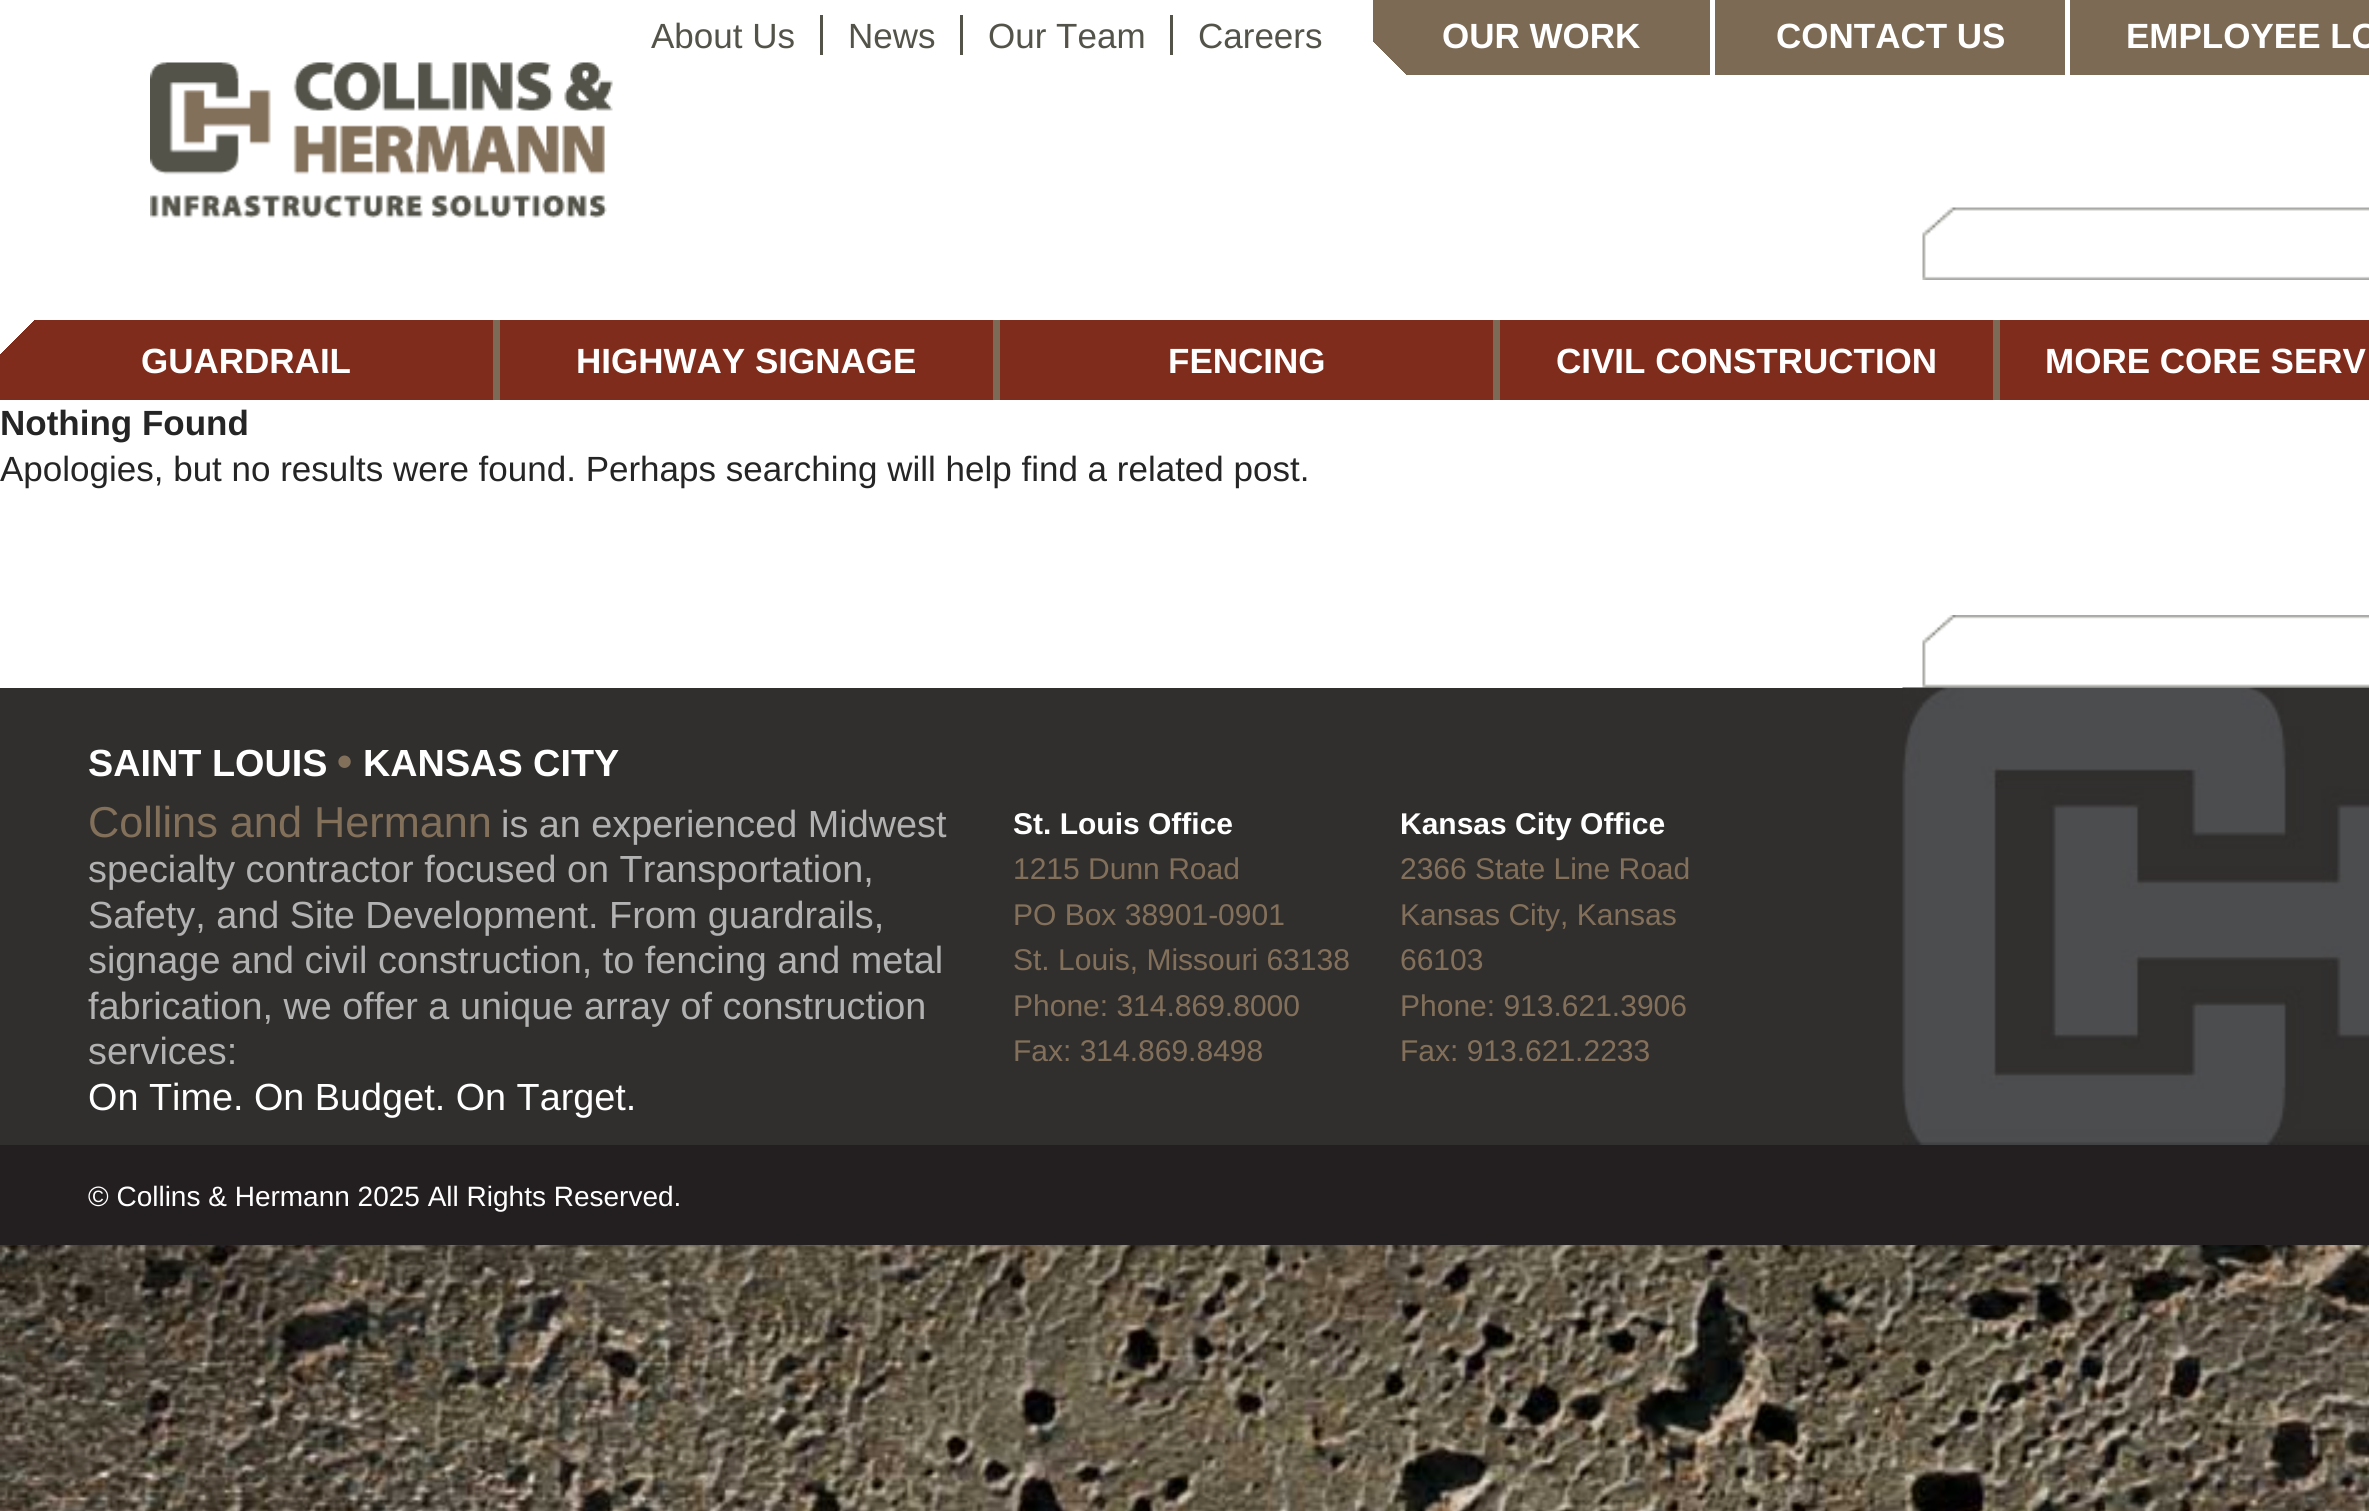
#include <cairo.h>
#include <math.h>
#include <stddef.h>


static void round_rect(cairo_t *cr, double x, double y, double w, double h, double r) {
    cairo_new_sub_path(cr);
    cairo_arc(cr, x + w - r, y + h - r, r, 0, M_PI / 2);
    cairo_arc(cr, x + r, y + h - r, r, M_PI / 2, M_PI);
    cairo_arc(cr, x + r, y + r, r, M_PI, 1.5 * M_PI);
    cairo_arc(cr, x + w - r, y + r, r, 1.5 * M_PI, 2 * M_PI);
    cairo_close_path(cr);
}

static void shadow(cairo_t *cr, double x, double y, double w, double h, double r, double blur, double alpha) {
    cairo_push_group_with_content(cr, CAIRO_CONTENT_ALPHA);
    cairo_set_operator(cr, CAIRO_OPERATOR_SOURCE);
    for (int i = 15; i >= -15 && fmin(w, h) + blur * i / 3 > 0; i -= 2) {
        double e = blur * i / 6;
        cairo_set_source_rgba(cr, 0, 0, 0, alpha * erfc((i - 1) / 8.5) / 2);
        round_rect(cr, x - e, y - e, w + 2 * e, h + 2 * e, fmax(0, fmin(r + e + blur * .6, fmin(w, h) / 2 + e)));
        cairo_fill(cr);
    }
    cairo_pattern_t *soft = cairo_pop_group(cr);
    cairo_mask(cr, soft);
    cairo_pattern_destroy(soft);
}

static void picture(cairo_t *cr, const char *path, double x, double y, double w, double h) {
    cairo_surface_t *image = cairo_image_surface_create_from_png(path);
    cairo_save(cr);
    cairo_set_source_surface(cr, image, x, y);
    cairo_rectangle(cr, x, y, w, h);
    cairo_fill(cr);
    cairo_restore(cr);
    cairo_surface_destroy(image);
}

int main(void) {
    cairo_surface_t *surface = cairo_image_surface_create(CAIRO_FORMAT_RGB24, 2369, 1511);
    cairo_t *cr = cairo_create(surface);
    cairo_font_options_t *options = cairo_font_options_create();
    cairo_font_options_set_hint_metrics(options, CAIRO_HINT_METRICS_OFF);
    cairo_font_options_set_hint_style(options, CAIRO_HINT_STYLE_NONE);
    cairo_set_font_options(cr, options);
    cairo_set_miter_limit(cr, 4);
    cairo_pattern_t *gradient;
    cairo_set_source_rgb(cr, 1, 1, 1);
    cairo_paint(cr);
    picture(cr, "img1.png", 0, 1245, 2369, 266);
    cairo_set_source_rgb(cr, 0, 0, 0);
    shadow(cr, -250, 150, 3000, 788, 0, 250, 1);
    cairo_set_source_rgb(cr, 1, 1, 1);
    cairo_rectangle(cr, 0, 0, 2369, 320);
    cairo_fill(cr);
    cairo_select_font_face(cr, "Liberation Sans", CAIRO_FONT_SLANT_NORMAL, CAIRO_FONT_WEIGHT_NORMAL);
    cairo_set_font_size(cr, 35);
    cairo_set_source_rgb(cr, 0.329, 0.325, 0.29);
    cairo_move_to(cr, 651, 48);
    cairo_show_text(cr, "About Us");
    cairo_move_to(cr, 848, 48);
    cairo_show_text(cr, "News");
    cairo_rectangle(cr, 820, 15, 3, 40);
    cairo_fill(cr);
    cairo_move_to(cr, 988, 48);
    cairo_show_text(cr, "Our Team");
    cairo_rectangle(cr, 960, 15, 3, 40);
    cairo_fill(cr);
    cairo_move_to(cr, 1198, 48);
    cairo_show_text(cr, "Careers");
    cairo_rectangle(cr, 1170, 15, 3, 40);
    cairo_fill(cr);
    gradient = cairo_pattern_create_linear(1437, 139, 1646, -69);
    cairo_pattern_add_color_stop_rgba(gradient, 0.08, 1, 1, 1, 1);
    cairo_pattern_add_color_stop_rgba(gradient, 0.08, 0.486, 0.416, 0.333, 1);
    cairo_set_source(cr, gradient);
    cairo_pattern_destroy(gradient);
    cairo_rectangle(cr, 1373, 0, 337, 75);
    cairo_fill(cr);
    cairo_select_font_face(cr, "Liberation Sans", CAIRO_FONT_SLANT_NORMAL, CAIRO_FONT_WEIGHT_BOLD);
    cairo_set_source_rgb(cr, 1, 1, 1);
    cairo_move_to(cr, 1442, 48);
    cairo_show_text(cr, "OUR WORK");
    cairo_set_source_rgb(cr, 0.486, 0.416, 0.333);
    cairo_rectangle(cr, 1715, 0, 350, 75);
    cairo_fill(cr);
    cairo_set_source_rgb(cr, 1, 1, 1);
    cairo_move_to(cr, 1776, 48);
    cairo_show_text(cr, "CONTACT US");
    gradient = cairo_pattern_create_linear(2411, 162, 2157, -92);
    cairo_pattern_add_color_stop_rgba(gradient, 0.07, 1, 1, 1, 1);
    cairo_pattern_add_color_stop_rgba(gradient, 0.07, 0.486, 0.416, 0.333, 1);
    cairo_set_source(cr, gradient);
    cairo_pattern_destroy(gradient);
    cairo_rectangle(cr, 2070, 0, 299, 75);
    cairo_fill(cr);
    cairo_set_source_rgb(cr, 1, 1, 1);
    cairo_move_to(cr, 2126, 48);
    cairo_show_text(cr, "EMPLOYEE LO");
    picture(cr, "img2.png", 150, 62, 463, 156);
    picture(cr, "img3.png", 1922, 207, 447, 73);
    gradient = cairo_pattern_create_linear(103, 217, 389, 503);
    cairo_pattern_add_color_stop_rgba(gradient, 0.06, 1, 1, 1, 1);
    cairo_pattern_add_color_stop_rgba(gradient, 0.06, 0.498, 0.173, 0.114, 1);
    cairo_set_source(cr, gradient);
    cairo_pattern_destroy(gradient);
    cairo_rectangle(cr, 0, 320, 493, 80);
    cairo_fill(cr);
    cairo_set_source_rgb(cr, 0.486, 0.416, 0.337);
    cairo_rectangle(cr, 493, 320, 7, 80);
    cairo_fill(cr);
    cairo_set_source_rgb(cr, 1, 1, 1);
    cairo_move_to(cr, 141, 373);
    cairo_show_text(cr, "GUARDRAIL");
    cairo_set_source_rgb(cr, 0.498, 0.173, 0.114);
    cairo_rectangle(cr, 500, 320, 493, 80);
    cairo_fill(cr);
    cairo_set_source_rgb(cr, 0.486, 0.416, 0.337);
    cairo_rectangle(cr, 993, 320, 7, 80);
    cairo_fill(cr);
    cairo_set_source_rgb(cr, 1, 1, 1);
    cairo_move_to(cr, 576, 373);
    cairo_show_text(cr, "HIGHWAY SIGNAGE");
    cairo_set_source_rgb(cr, 0.498, 0.173, 0.114);
    cairo_rectangle(cr, 1000, 320, 493, 80);
    cairo_fill(cr);
    cairo_set_source_rgb(cr, 0.486, 0.416, 0.337);
    cairo_rectangle(cr, 1493, 320, 7, 80);
    cairo_fill(cr);
    cairo_set_source_rgb(cr, 1, 1, 1);
    cairo_move_to(cr, 1168, 373);
    cairo_show_text(cr, "FENCING");
    cairo_set_source_rgb(cr, 0.498, 0.173, 0.114);
    cairo_rectangle(cr, 1500, 320, 493, 80);
    cairo_fill(cr);
    cairo_set_source_rgb(cr, 0.486, 0.416, 0.337);
    cairo_rectangle(cr, 1993, 320, 7, 80);
    cairo_fill(cr);
    cairo_set_source_rgb(cr, 1, 1, 1);
    cairo_move_to(cr, 1556, 373);
    cairo_show_text(cr, "CIVIL CONSTRUCTION");
    gradient = cairo_pattern_create_linear(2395, 215, 2105, 505);
    cairo_pattern_add_color_stop_rgba(gradient, 0.06, 0.498, 0.173, 0.114, 0);
    cairo_pattern_add_color_stop_rgba(gradient, 0.06, 0.498, 0.173, 0.114, 1);
    cairo_set_source(cr, gradient);
    cairo_pattern_destroy(gradient);
    cairo_rectangle(cr, 2000, 320, 369, 80);
    cairo_fill(cr);
    cairo_set_source_rgb(cr, 1, 1, 1);
    cairo_move_to(cr, 2045, 373);
    cairo_show_text(cr, "MORE CORE SERV");
    cairo_rectangle(cr, 0, 400, 2369, 288);
    cairo_fill(cr);
    cairo_set_source_rgb(cr, 0.145, 0.145, 0.145);
    cairo_move_to(cr, 0, 435);
    cairo_show_text(cr, "Nothing Found");
    cairo_select_font_face(cr, "Liberation Sans", CAIRO_FONT_SLANT_NORMAL, CAIRO_FONT_WEIGHT_NORMAL);
    cairo_move_to(cr, 0, 481);
    cairo_show_text(cr, "Apologies, but no results were found. Perhaps searching will help find a related post.");
    picture(cr, "img4.png", 1922, 615, 447, 73);
    cairo_set_source_rgb(cr, 0.192, 0.184, 0.18);
    cairo_rectangle(cr, 0, 688, 1903, 457);
    cairo_fill(cr);
    picture(cr, "img5.png", 1902, 687, 467, 458);
    cairo_select_font_face(cr, "Liberation Sans", CAIRO_FONT_SLANT_NORMAL, CAIRO_FONT_WEIGHT_BOLD);
    cairo_set_font_size(cr, 37.8);
    cairo_set_source_rgb(cr, 1, 1, 1);
    cairo_move_to(cr, 88, 776);
    cairo_show_text(cr, "SAINT LOUIS");
    cairo_set_font_size(cr, 43.25);
    cairo_set_source_rgb(cr, 0.514, 0.439, 0.353);
    cairo_move_to(cr, 337, 776);
    cairo_show_text(cr, "•");
    cairo_set_font_size(cr, 37.8);
    cairo_set_source_rgb(cr, 1, 1, 1);
    cairo_move_to(cr, 363, 776);
    cairo_show_text(cr, "KANSAS CITY");
    cairo_select_font_face(cr, "Liberation Sans", CAIRO_FONT_SLANT_NORMAL, CAIRO_FONT_WEIGHT_NORMAL);
    cairo_set_font_size(cr, 43.25);
    cairo_set_source_rgb(cr, 0.514, 0.439, 0.353);
    cairo_move_to(cr, 88, 837);
    cairo_show_text(cr, "Collins and Hermann");
    cairo_set_font_size(cr, 37.8);
    cairo_set_source_rgb(cr, 0.698, 0.698, 0.698);
    cairo_move_to(cr, 501, 837);
    cairo_show_text(cr, "is an experienced Midwest");
    cairo_move_to(cr, 88, 882);
    cairo_show_text(cr, "specialty contractor focused on Transportation,");
    cairo_move_to(cr, 88, 928);
    cairo_show_text(cr, "Safety, and Site Development. From guardrails,");
    cairo_move_to(cr, 88, 973);
    cairo_show_text(cr, "signage and civil construction, to fencing and metal");
    cairo_move_to(cr, 88, 1019);
    cairo_show_text(cr, "fabrication, we offer a unique array of construction");
    cairo_move_to(cr, 88, 1064);
    cairo_show_text(cr, "services:");
    cairo_set_source_rgb(cr, 1, 1, 1);
    cairo_move_to(cr, 88, 1110);
    cairo_show_text(cr, "On Time. On Budget. On Target.");
    cairo_select_font_face(cr, "Liberation Sans", CAIRO_FONT_SLANT_NORMAL, CAIRO_FONT_WEIGHT_BOLD);
    cairo_set_font_size(cr, 30);
    cairo_move_to(cr, 1013, 834);
    cairo_show_text(cr, "St. Louis Office");
    cairo_select_font_face(cr, "Liberation Sans", CAIRO_FONT_SLANT_NORMAL, CAIRO_FONT_WEIGHT_NORMAL);
    cairo_set_source_rgb(cr, 0.514, 0.439, 0.353);
    cairo_move_to(cr, 1013, 879);
    cairo_show_text(cr, "1215 Dunn Road");
    cairo_move_to(cr, 1013, 925);
    cairo_show_text(cr, "PO Box 38901-0901");
    cairo_move_to(cr, 1013, 970);
    cairo_show_text(cr, "St. Louis, Missouri 63138");
    cairo_move_to(cr, 1013, 1016);
    cairo_show_text(cr, "Phone: 314.869.8000");
    cairo_move_to(cr, 1013, 1061);
    cairo_show_text(cr, "Fax: 314.869.8498");
    cairo_select_font_face(cr, "Liberation Sans", CAIRO_FONT_SLANT_NORMAL, CAIRO_FONT_WEIGHT_BOLD);
    cairo_set_source_rgb(cr, 1, 1, 1);
    cairo_move_to(cr, 1400, 834);
    cairo_show_text(cr, "Kansas City Office");
    cairo_select_font_face(cr, "Liberation Sans", CAIRO_FONT_SLANT_NORMAL, CAIRO_FONT_WEIGHT_NORMAL);
    cairo_set_source_rgb(cr, 0.514, 0.439, 0.353);
    cairo_move_to(cr, 1400, 879);
    cairo_show_text(cr, "2366 State Line Road");
    cairo_move_to(cr, 1400, 925);
    cairo_show_text(cr, "Kansas City, Kansas");
    cairo_move_to(cr, 1400, 970);
    cairo_show_text(cr, "66103");
    cairo_move_to(cr, 1400, 1016);
    cairo_show_text(cr, "Phone: 913.621.3906");
    cairo_move_to(cr, 1400, 1061);
    cairo_show_text(cr, "Fax: 913.621.2233");
    cairo_set_source_rgb(cr, 0.137, 0.122, 0.125);
    cairo_rectangle(cr, 0, 1145, 2369, 100);
    cairo_fill(cr);
    cairo_set_font_size(cr, 28);
    cairo_set_source_rgb(cr, 1, 1, 1);
    cairo_move_to(cr, 88, 1206);
    cairo_show_text(cr, "© Collins & Hermann 2025 All Rights Reserved.");
    cairo_surface_write_to_png(surface, "page.png");
    cairo_font_options_destroy(options);
    cairo_destroy(cr);
    cairo_surface_destroy(surface);
    return 0;
}
